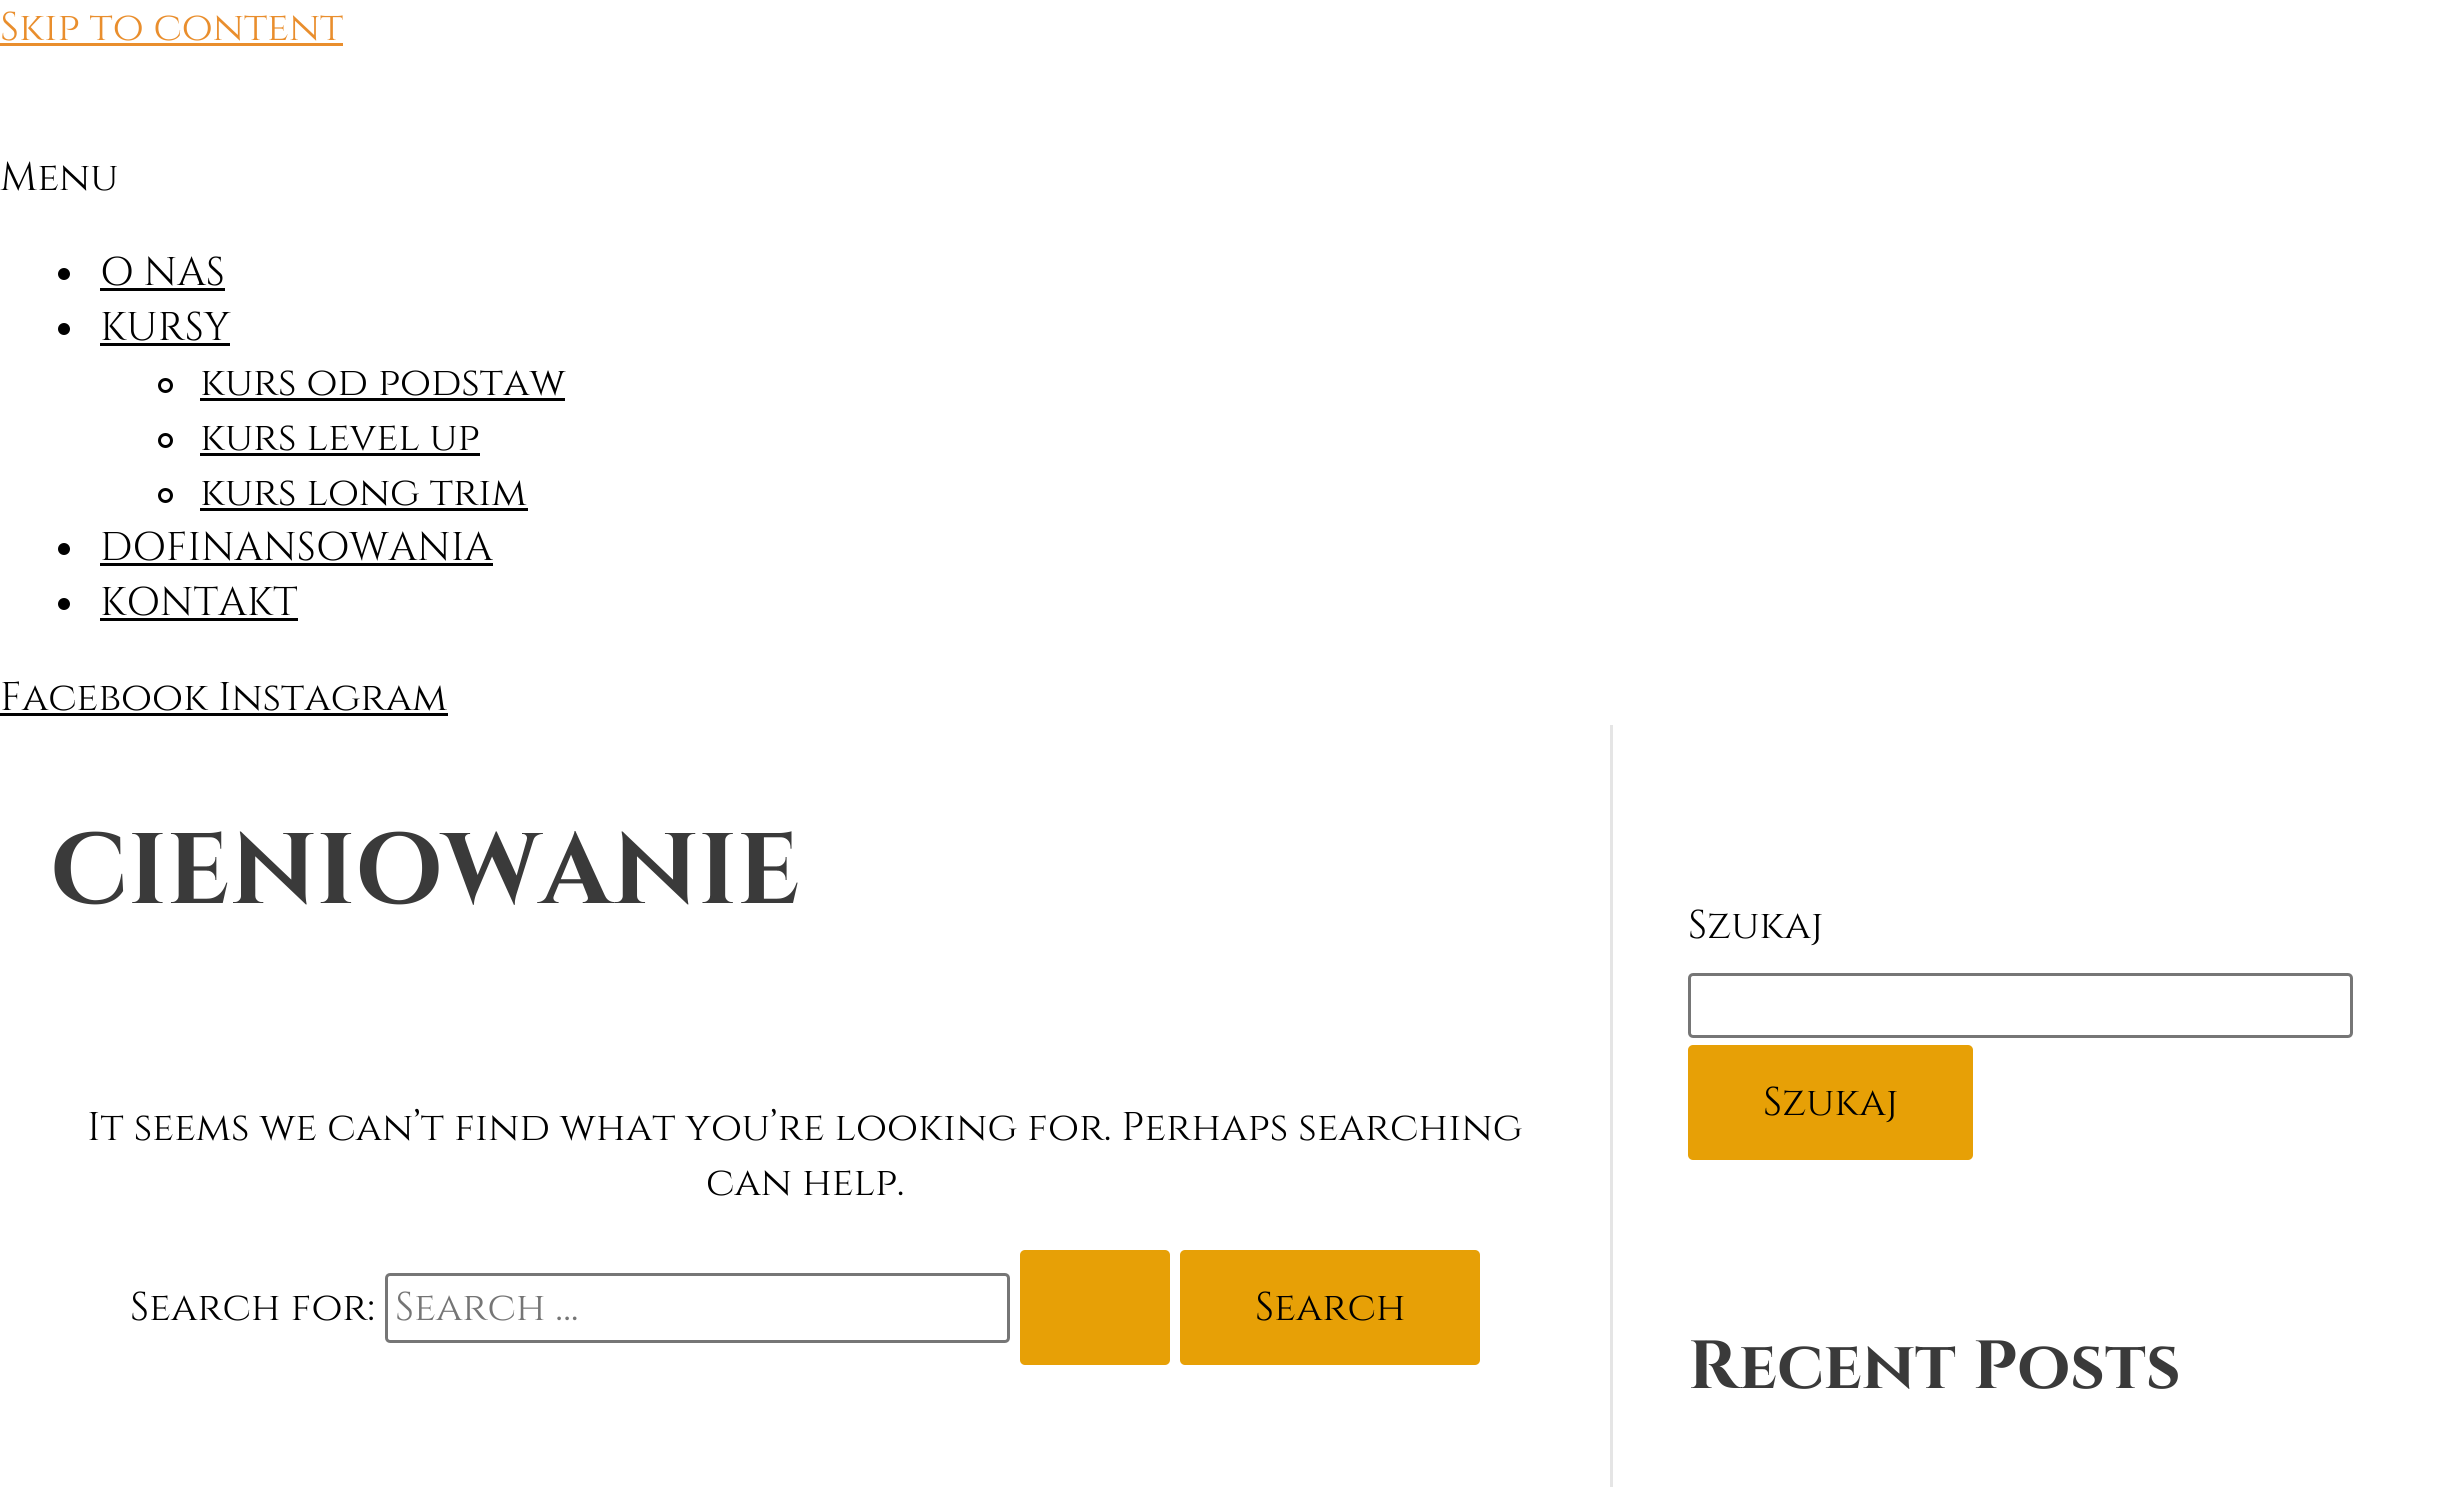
#include <cairo.h>
#include <math.h>
#include <stddef.h>


static void round_rect(cairo_t *cr, double x, double y, double w, double h, double r) {
    cairo_new_sub_path(cr);
    cairo_arc(cr, x + w - r, y + h - r, r, 0, M_PI / 2);
    cairo_arc(cr, x + r, y + h - r, r, M_PI / 2, M_PI);
    cairo_arc(cr, x + r, y + r, r, M_PI, 1.5 * M_PI);
    cairo_arc(cr, x + w - r, y + r, r, 1.5 * M_PI, 2 * M_PI);
    cairo_close_path(cr);
}

int main(void) {
    cairo_surface_t *surface = cairo_image_surface_create(CAIRO_FORMAT_RGB24, 2451, 1487);
    cairo_t *cr = cairo_create(surface);
    cairo_font_options_t *options = cairo_font_options_create();
    cairo_font_options_set_hint_metrics(options, CAIRO_HINT_METRICS_OFF);
    cairo_font_options_set_hint_style(options, CAIRO_HINT_STYLE_NONE);
    cairo_set_font_options(cr, options);
    cairo_set_miter_limit(cr, 4);
    cairo_set_source_rgb(cr, 1, 1, 1);
    cairo_paint(cr);
    cairo_select_font_face(cr, "Cinzel", CAIRO_FONT_SLANT_NORMAL, CAIRO_FONT_WEIGHT_NORMAL);
    cairo_set_font_size(cr, 40);
    cairo_set_source_rgb(cr, 0.914, 0.557, 0.176);
    cairo_move_to(cr, 0, 40);
    cairo_show_text(cr, "Skip to content");
    cairo_rectangle(cr, 0, 43, 343, 3);
    cairo_fill(cr);
    cairo_set_source_rgb(cr, 0, 0, 0);
    cairo_move_to(cr, 0, 190);
    cairo_show_text(cr, "Menu");
    cairo_new_path(cr);
    cairo_arc(cr, 64, 274, 6, 0, 2 * M_PI);
    cairo_fill(cr);
    cairo_move_to(cr, 100, 285);
    cairo_show_text(cr, "O NAS");
    cairo_set_source_rgb(cr, 0.004, 0.004, 0.004);
    cairo_rectangle(cr, 100, 288, 125, 3);
    cairo_fill(cr);
    cairo_set_source_rgb(cr, 0, 0, 0);
    cairo_arc(cr, 64, 329, 6, 0, 2 * M_PI);
    cairo_fill(cr);
    cairo_move_to(cr, 100, 340);
    cairo_show_text(cr, "KURSY");
    cairo_set_source_rgb(cr, 0.004, 0.004, 0.004);
    cairo_rectangle(cr, 100, 343, 130, 3);
    cairo_fill(cr);
    cairo_arc(cr, 165.5, 385.5, 6, 0, 2 * M_PI);
    cairo_set_source_rgb(cr, 0, 0, 0);
    cairo_set_line_width(cr, 3);
    cairo_stroke(cr);
    cairo_move_to(cr, 200, 395);
    cairo_show_text(cr, "kurs od podstaw");
    cairo_set_source_rgb(cr, 0.004, 0.004, 0.004);
    cairo_rectangle(cr, 200, 398, 365, 3);
    cairo_fill(cr);
    cairo_arc(cr, 165.5, 440.5, 6, 0, 2 * M_PI);
    cairo_set_source_rgb(cr, 0, 0, 0);
    cairo_stroke(cr);
    cairo_move_to(cr, 200, 450);
    cairo_show_text(cr, "kurs level up");
    cairo_set_source_rgb(cr, 0.004, 0.004, 0.004);
    cairo_rectangle(cr, 200, 453, 280, 3);
    cairo_fill(cr);
    cairo_arc(cr, 165.5, 495.5, 6, 0, 2 * M_PI);
    cairo_set_source_rgb(cr, 0, 0, 0);
    cairo_stroke(cr);
    cairo_move_to(cr, 200, 505);
    cairo_show_text(cr, "kurs long trim");
    cairo_set_source_rgb(cr, 0.004, 0.004, 0.004);
    cairo_rectangle(cr, 200, 508, 328, 3);
    cairo_fill(cr);
    cairo_set_source_rgb(cr, 0, 0, 0);
    cairo_arc(cr, 64, 549, 6, 0, 2 * M_PI);
    cairo_fill(cr);
    cairo_move_to(cr, 100, 560);
    cairo_show_text(cr, "DOFINANSOWANIA");
    cairo_set_source_rgb(cr, 0.004, 0.004, 0.004);
    cairo_rectangle(cr, 100, 563, 393, 3);
    cairo_fill(cr);
    cairo_set_source_rgb(cr, 0, 0, 0);
    cairo_arc(cr, 64, 604, 6, 0, 2 * M_PI);
    cairo_fill(cr);
    cairo_move_to(cr, 100, 615);
    cairo_show_text(cr, "KONTAKT");
    cairo_set_source_rgb(cr, 0.004, 0.004, 0.004);
    cairo_rectangle(cr, 100, 618, 198, 3);
    cairo_fill(cr);
    cairo_set_source_rgb(cr, 0, 0, 0);
    cairo_move_to(cr, 0, 710);
    cairo_show_text(cr, "Facebook Instagram");
    cairo_set_source_rgb(cr, 0.004, 0.004, 0.004);
    cairo_rectangle(cr, 0, 713, 448, 3);
    cairo_fill(cr);
    cairo_set_source_rgb(cr, 0.898, 0.898, 0.898);
    cairo_rectangle(cr, 1610, 725, 3, 762);
    cairo_fill(cr);
    cairo_select_font_face(cr, "Cinzel", CAIRO_FONT_SLANT_NORMAL, CAIRO_FONT_WEIGHT_BOLD);
    cairo_set_font_size(cr, 100);
    cairo_set_source_rgb(cr, 0.227, 0.227, 0.227);
    cairo_move_to(cr, 50, 903);
    cairo_show_text(cr, "CIENIOWANIE");
    cairo_select_font_face(cr, "Cinzel", CAIRO_FONT_SLANT_NORMAL, CAIRO_FONT_WEIGHT_NORMAL);
    cairo_set_font_size(cr, 40);
    cairo_set_source_rgb(cr, 0, 0, 0);
    cairo_move_to(cr, 87, 1140);
    cairo_show_text(cr, "It seems we can’t find what you’re looking for. Perhaps searching");
    cairo_move_to(cr, 706, 1195);
    cairo_show_text(cr, "can help.");
    cairo_move_to(cr, 130, 1320);
    cairo_show_text(cr, "Search for:");
    round_rect(cr, 386.5, 1274.5, 622, 67, 3.5);
    cairo_set_source_rgb(cr, 0.463, 0.463, 0.463);
    cairo_stroke(cr);
    cairo_set_source_rgb(cr, 0.459, 0.459, 0.459);
    cairo_move_to(cr, 395, 1320);
    cairo_show_text(cr, "Search …");
    cairo_set_source_rgb(cr, 0.906, 0.627, 0.024);
    round_rect(cr, 1020, 1250, 150, 115, 5);
    cairo_fill(cr);
    round_rect(cr, 1180, 1250, 300, 115, 5);
    cairo_fill(cr);
    cairo_set_source_rgb(cr, 0, 0, 0);
    cairo_move_to(cr, 1255, 1320);
    cairo_show_text(cr, "Search");
    cairo_move_to(cr, 1688, 938);
    cairo_show_text(cr, "Szukaj");
    round_rect(cr, 1689.5, 974.5, 662, 62, 3.5);
    cairo_set_source_rgb(cr, 0.463, 0.463, 0.463);
    cairo_stroke(cr);
    cairo_set_source_rgb(cr, 0.906, 0.627, 0.024);
    round_rect(cr, 1688, 1045, 285, 115, 5);
    cairo_fill(cr);
    cairo_set_source_rgb(cr, 0, 0, 0);
    cairo_move_to(cr, 1763, 1115);
    cairo_show_text(cr, "Szukaj");
    cairo_select_font_face(cr, "Cinzel", CAIRO_FONT_SLANT_NORMAL, CAIRO_FONT_WEIGHT_BOLD);
    cairo_set_font_size(cr, 68);
    cairo_set_source_rgb(cr, 0.227, 0.227, 0.227);
    cairo_move_to(cr, 1688, 1388);
    cairo_show_text(cr, "Recent Posts");
    cairo_surface_write_to_png(surface, "page.png");
    cairo_font_options_destroy(options);
    cairo_destroy(cr);
    cairo_surface_destroy(surface);
    return 0;
}
